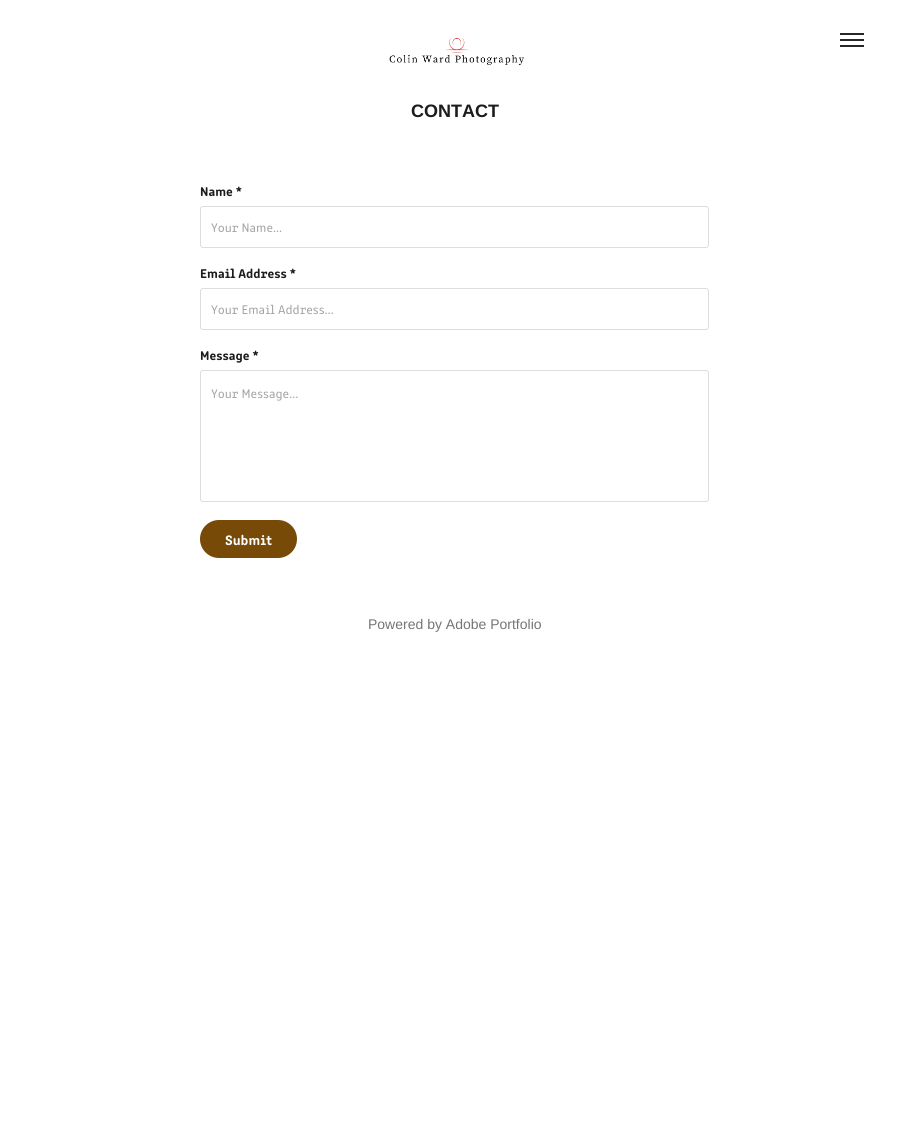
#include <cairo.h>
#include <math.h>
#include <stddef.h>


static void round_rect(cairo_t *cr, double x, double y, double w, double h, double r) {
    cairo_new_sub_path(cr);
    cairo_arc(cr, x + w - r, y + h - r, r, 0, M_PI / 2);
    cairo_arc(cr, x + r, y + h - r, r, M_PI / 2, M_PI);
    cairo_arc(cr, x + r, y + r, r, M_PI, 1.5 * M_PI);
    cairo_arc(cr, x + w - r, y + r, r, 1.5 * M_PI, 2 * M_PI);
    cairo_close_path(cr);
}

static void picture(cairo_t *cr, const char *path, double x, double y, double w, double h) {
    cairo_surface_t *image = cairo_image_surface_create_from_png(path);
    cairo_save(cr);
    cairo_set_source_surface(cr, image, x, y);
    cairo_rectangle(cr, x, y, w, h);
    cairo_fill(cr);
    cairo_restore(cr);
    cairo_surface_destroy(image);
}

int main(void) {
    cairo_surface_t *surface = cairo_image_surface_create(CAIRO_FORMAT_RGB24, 909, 1125);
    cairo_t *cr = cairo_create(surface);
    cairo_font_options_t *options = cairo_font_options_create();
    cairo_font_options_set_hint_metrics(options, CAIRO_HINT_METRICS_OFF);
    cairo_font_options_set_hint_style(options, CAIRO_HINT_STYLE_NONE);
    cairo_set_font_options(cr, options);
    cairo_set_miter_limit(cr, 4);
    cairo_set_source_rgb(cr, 1, 1, 1);
    cairo_paint(cr);
    picture(cr, "img1.png", 389, 38, 136, 28);
    cairo_set_source_rgb(cr, 0.157, 0.157, 0.157);
    cairo_rectangle(cr, 840, 33, 24, 2);
    cairo_fill(cr);
    cairo_rectangle(cr, 840, 39, 24, 2);
    cairo_fill(cr);
    cairo_rectangle(cr, 840, 45, 24, 2);
    cairo_fill(cr);
    cairo_select_font_face(cr, "Liberation Sans", CAIRO_FONT_SLANT_NORMAL, CAIRO_FONT_WEIGHT_BOLD);
    cairo_set_font_size(cr, 18);
    cairo_set_source_rgb(cr, 0.11, 0.11, 0.11);
    cairo_move_to(cr, 411, 117);
    cairo_show_text(cr, "CONTACT");
    cairo_select_font_face(cr, "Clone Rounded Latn", CAIRO_FONT_SLANT_NORMAL, CAIRO_FONT_WEIGHT_BOLD);
    cairo_set_font_size(cr, 13);
    cairo_move_to(cr, 200, 196);
    cairo_show_text(cr, "Name *");
    round_rect(cr, 200.5, 206.5, 508, 41, 2.5);
    cairo_set_source_rgb(cr, 0.867, 0.867, 0.867);
    cairo_set_line_width(cr, 1);
    cairo_stroke(cr);
    cairo_select_font_face(cr, "Clone Rounded Latn", CAIRO_FONT_SLANT_NORMAL, CAIRO_FONT_WEIGHT_NORMAL);
    cairo_set_source_rgb(cr, 0.643, 0.643, 0.643);
    cairo_move_to(cr, 211, 232);
    cairo_show_text(cr, "Your Name...");
    cairo_select_font_face(cr, "Clone Rounded Latn", CAIRO_FONT_SLANT_NORMAL, CAIRO_FONT_WEIGHT_BOLD);
    cairo_set_source_rgb(cr, 0.11, 0.11, 0.11);
    cairo_move_to(cr, 200, 278);
    cairo_show_text(cr, "Email Address *");
    round_rect(cr, 200.5, 288.5, 508, 41, 2.5);
    cairo_set_source_rgb(cr, 0.867, 0.867, 0.867);
    cairo_stroke(cr);
    cairo_select_font_face(cr, "Clone Rounded Latn", CAIRO_FONT_SLANT_NORMAL, CAIRO_FONT_WEIGHT_NORMAL);
    cairo_set_source_rgb(cr, 0.643, 0.643, 0.643);
    cairo_move_to(cr, 211, 314);
    cairo_show_text(cr, "Your Email Address...");
    cairo_select_font_face(cr, "Clone Rounded Latn", CAIRO_FONT_SLANT_NORMAL, CAIRO_FONT_WEIGHT_BOLD);
    cairo_set_source_rgb(cr, 0.11, 0.11, 0.11);
    cairo_move_to(cr, 200, 360);
    cairo_show_text(cr, "Message *");
    round_rect(cr, 200.5, 370.5, 508, 131, 2.5);
    cairo_set_source_rgb(cr, 0.867, 0.867, 0.867);
    cairo_stroke(cr);
    cairo_select_font_face(cr, "Clone Rounded Latn", CAIRO_FONT_SLANT_NORMAL, CAIRO_FONT_WEIGHT_NORMAL);
    cairo_set_source_rgb(cr, 0.643, 0.643, 0.643);
    cairo_move_to(cr, 211, 398);
    cairo_show_text(cr, "Your Message...");
    cairo_set_source_rgb(cr, 0.467, 0.294, 0.031);
    round_rect(cr, 200, 520, 97, 38, 19);
    cairo_fill(cr);
    cairo_select_font_face(cr, "Clone Rounded Latn", CAIRO_FONT_SLANT_NORMAL, CAIRO_FONT_WEIGHT_BOLD);
    cairo_set_font_size(cr, 14);
    cairo_set_source_rgb(cr, 1, 1, 1);
    cairo_move_to(cr, 225, 545);
    cairo_show_text(cr, "Submit");
    cairo_select_font_face(cr, "Liberation Sans", CAIRO_FONT_SLANT_NORMAL, CAIRO_FONT_WEIGHT_NORMAL);
    cairo_set_source_rgb(cr, 0.459, 0.459, 0.459);
    cairo_move_to(cr, 368, 629);
    cairo_show_text(cr, "Powered by Adobe Portfolio");
    cairo_surface_write_to_png(surface, "page.png");
    cairo_font_options_destroy(options);
    cairo_destroy(cr);
    cairo_surface_destroy(surface);
    return 0;
}
